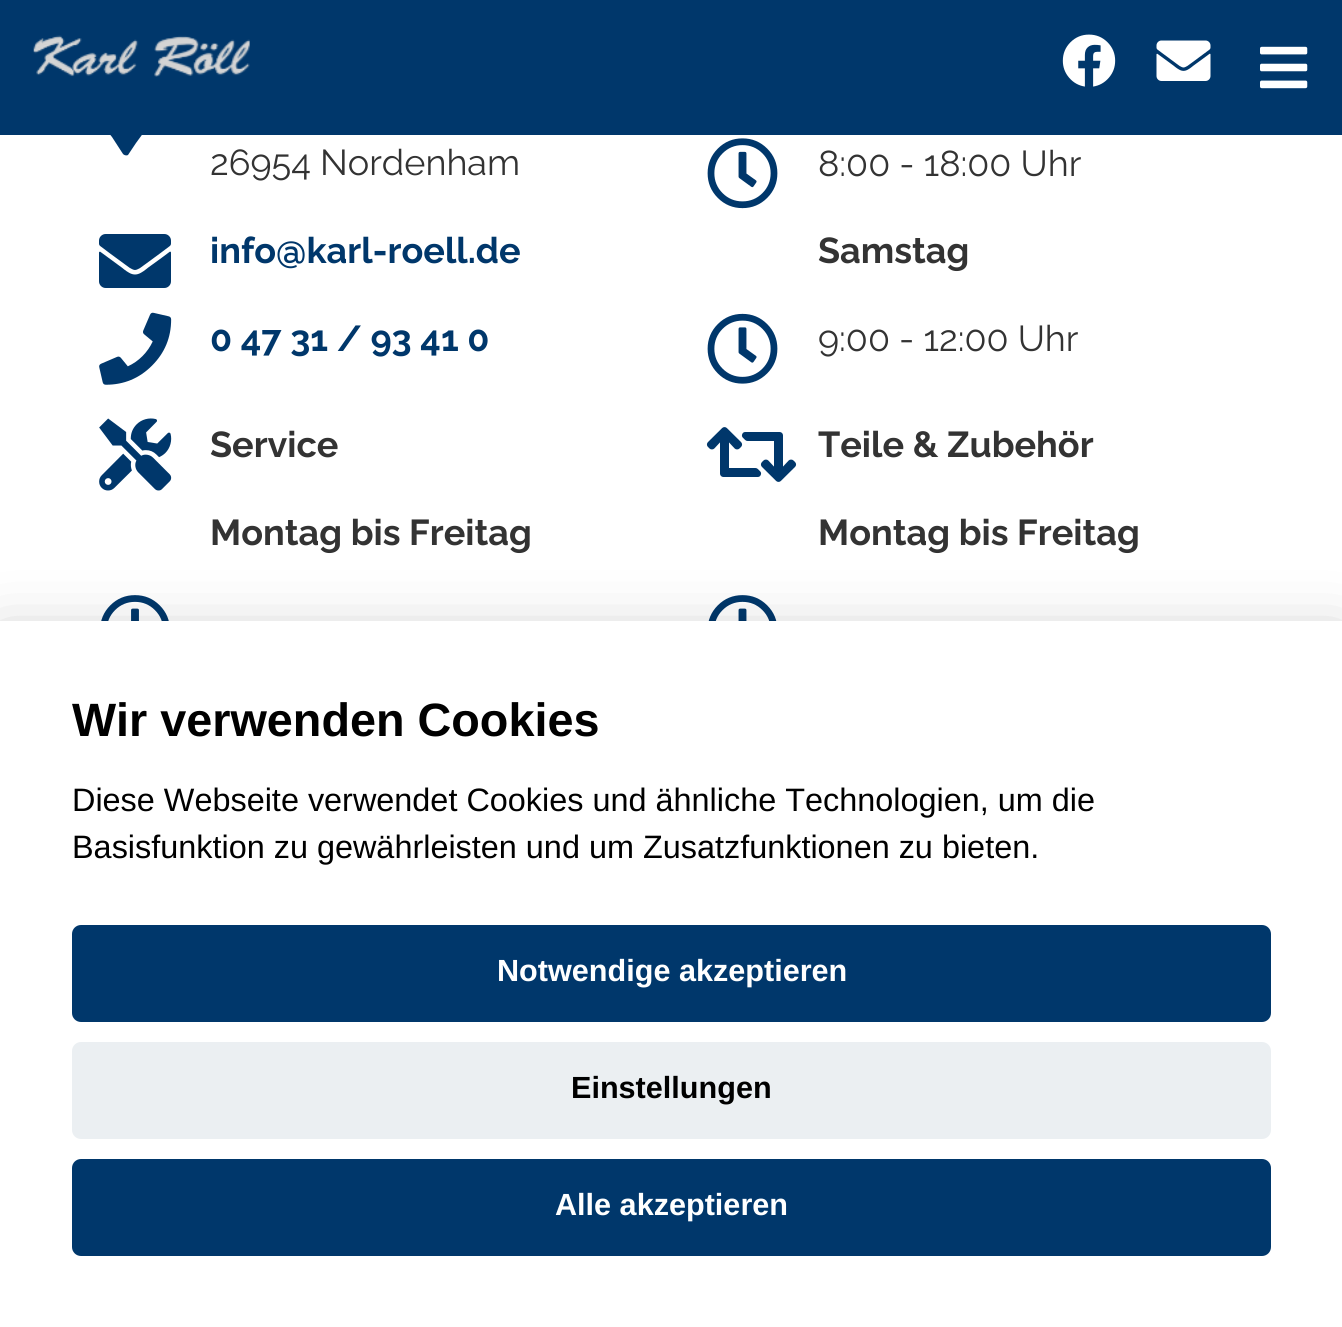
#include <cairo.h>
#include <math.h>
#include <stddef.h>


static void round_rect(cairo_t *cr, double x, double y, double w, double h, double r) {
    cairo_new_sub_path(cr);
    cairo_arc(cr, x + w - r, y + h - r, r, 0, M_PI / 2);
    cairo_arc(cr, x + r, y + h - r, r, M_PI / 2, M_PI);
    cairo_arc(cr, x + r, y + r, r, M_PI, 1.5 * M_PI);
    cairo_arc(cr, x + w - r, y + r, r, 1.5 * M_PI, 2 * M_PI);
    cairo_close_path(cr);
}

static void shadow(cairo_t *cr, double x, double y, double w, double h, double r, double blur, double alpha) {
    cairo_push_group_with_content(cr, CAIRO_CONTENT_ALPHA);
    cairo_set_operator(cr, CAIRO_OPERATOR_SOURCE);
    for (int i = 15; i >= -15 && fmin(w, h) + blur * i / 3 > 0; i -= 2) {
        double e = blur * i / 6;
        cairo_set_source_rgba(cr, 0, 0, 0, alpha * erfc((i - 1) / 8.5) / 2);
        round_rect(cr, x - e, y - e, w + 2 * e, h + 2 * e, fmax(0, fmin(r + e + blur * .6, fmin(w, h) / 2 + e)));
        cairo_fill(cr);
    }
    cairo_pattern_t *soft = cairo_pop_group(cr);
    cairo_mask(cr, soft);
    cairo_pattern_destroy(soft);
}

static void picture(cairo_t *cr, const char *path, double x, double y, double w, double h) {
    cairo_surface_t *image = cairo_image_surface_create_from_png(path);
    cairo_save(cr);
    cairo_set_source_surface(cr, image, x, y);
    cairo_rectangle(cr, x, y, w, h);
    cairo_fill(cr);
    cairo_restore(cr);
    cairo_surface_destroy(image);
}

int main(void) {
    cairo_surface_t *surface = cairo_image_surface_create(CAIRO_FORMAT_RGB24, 1342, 1327);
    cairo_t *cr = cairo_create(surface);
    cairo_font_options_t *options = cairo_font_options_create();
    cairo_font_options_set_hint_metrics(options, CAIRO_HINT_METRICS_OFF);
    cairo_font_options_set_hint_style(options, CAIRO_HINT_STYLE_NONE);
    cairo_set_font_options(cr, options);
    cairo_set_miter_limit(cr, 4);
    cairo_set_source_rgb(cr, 1, 1, 1);
    cairo_paint(cr);
    cairo_set_source_rgb(cr, 0, 0.216, 0.42);
    cairo_new_path(cr);
    cairo_move_to(cr, 123, 154);
    cairo_line_to(cr, 112, 137);
    cairo_curve_to(cr, 107, 131, 101, 124, 99, 115);
    cairo_curve_to(cr, 94, 87, 132, 71, 149, 95);
    cairo_curve_to(cr, 161, 113, 146, 129, 136, 143);
    cairo_line_to(cr, 128, 155);
    cairo_curve_to(cr, 126, 156, 124, 155, 123, 154);
    cairo_close_path(cr);
    cairo_fill(cr);
    cairo_rectangle(cr, 0, 0, 1342, 135);
    cairo_fill(cr);
    picture(cr, "img1.png", 33, 35, 217, 42);
    picture(cr, "img2.png", 1062, 34, 54, 53);
    picture(cr, "img3.png", 1156, 40, 55, 41);
    picture(cr, "img4.png", 1260, 46, 48, 43);
    cairo_select_font_face(cr, "Raleway", CAIRO_FONT_SLANT_NORMAL, CAIRO_FONT_WEIGHT_NORMAL);
    cairo_set_font_size(cr, 36);
    cairo_set_source_rgb(cr, 0.2, 0.2, 0.2);
    cairo_move_to(cr, 210, 175);
    cairo_show_text(cr, "26954 Nordenham");
    picture(cr, "img5.png", 99, 234, 72, 54);
    cairo_select_font_face(cr, "Raleway", CAIRO_FONT_SLANT_NORMAL, CAIRO_FONT_WEIGHT_BOLD);
    cairo_set_source_rgb(cr, 0, 0.216, 0.42);
    cairo_move_to(cr, 210, 263);
    cairo_show_text(cr, "info@karl-roell.de");
    picture(cr, "img6.png", 99, 312, 73, 73);
    cairo_move_to(cr, 210, 351);
    cairo_show_text(cr, "0 47 31 / 93 41 0");
    picture(cr, "img7.png", 707, 138, 71, 71);
    cairo_select_font_face(cr, "Raleway", CAIRO_FONT_SLANT_NORMAL, CAIRO_FONT_WEIGHT_NORMAL);
    cairo_set_source_rgb(cr, 0.2, 0.2, 0.2);
    cairo_move_to(cr, 818, 176);
    cairo_show_text(cr, "8:00 - 18:00 Uhr");
    cairo_select_font_face(cr, "Raleway", CAIRO_FONT_SLANT_NORMAL, CAIRO_FONT_WEIGHT_BOLD);
    cairo_move_to(cr, 818, 263);
    cairo_show_text(cr, "Samstag");
    picture(cr, "img8.png", 707, 313, 71, 71);
    cairo_select_font_face(cr, "Raleway", CAIRO_FONT_SLANT_NORMAL, CAIRO_FONT_WEIGHT_NORMAL);
    cairo_move_to(cr, 818, 351);
    cairo_show_text(cr, "9:00 - 12:00 Uhr");
    picture(cr, "img9.png", 99, 418, 73, 73);
    cairo_select_font_face(cr, "Raleway", CAIRO_FONT_SLANT_NORMAL, CAIRO_FONT_WEIGHT_BOLD);
    cairo_move_to(cr, 210, 457);
    cairo_show_text(cr, "Service");
    cairo_move_to(cr, 210, 545);
    cairo_show_text(cr, "Montag bis Freitag");
    picture(cr, "img10.png", 101, 595, 68, 26);
    picture(cr, "img11.png", 706, 427, 91, 55);
    cairo_move_to(cr, 818, 457);
    cairo_show_text(cr, "Teile & Zubehör");
    cairo_move_to(cr, 818, 545);
    cairo_show_text(cr, "Montag bis Freitag");
    picture(cr, "img12.png", 708, 595, 69, 26);
    cairo_set_source_rgb(cr, 0.008, 0.008, 0.012);
    shadow(cr, 0, 644, 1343, 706, 0, 34, 0.28);
    cairo_set_source_rgb(cr, 1, 1, 1);
    cairo_rectangle(cr, 0, 621, 1342, 706);
    cairo_fill(cr);
    cairo_select_font_face(cr, "Liberation Sans", CAIRO_FONT_SLANT_NORMAL, CAIRO_FONT_WEIGHT_BOLD);
    cairo_set_font_size(cr, 46.75);
    cairo_set_source_rgb(cr, 0, 0, 0);
    cairo_move_to(cr, 72, 736);
    cairo_show_text(cr, "Wir verwenden Cookies");
    cairo_select_font_face(cr, "Liberation Sans", CAIRO_FONT_SLANT_NORMAL, CAIRO_FONT_WEIGHT_NORMAL);
    cairo_set_font_size(cr, 32.4);
    cairo_move_to(cr, 72, 811);
    cairo_show_text(cr, "Diese Webseite verwendet Cookies und ähnliche Technologien, um die");
    cairo_move_to(cr, 72, 858);
    cairo_show_text(cr, "Basisfunktion zu gewährleisten und um Zusatzfunktionen zu bieten.");
    cairo_set_source_rgb(cr, 0, 0.216, 0.42);
    round_rect(cr, 72, 925, 1199, 97, 9);
    cairo_fill(cr);
    cairo_select_font_face(cr, "Liberation Sans", CAIRO_FONT_SLANT_NORMAL, CAIRO_FONT_WEIGHT_BOLD);
    cairo_set_font_size(cr, 30.6);
    cairo_set_source_rgb(cr, 1, 1, 1);
    cairo_move_to(cr, 497, 981);
    cairo_show_text(cr, "Notwendige akzeptieren");
    cairo_set_source_rgb(cr, 0.918, 0.937, 0.949);
    round_rect(cr, 72, 1042, 1199, 97, 9);
    cairo_fill(cr);
    cairo_set_source_rgb(cr, 0, 0, 0);
    cairo_move_to(cr, 571, 1098);
    cairo_show_text(cr, "Einstellungen");
    cairo_set_source_rgb(cr, 0, 0.216, 0.42);
    round_rect(cr, 72, 1159, 1199, 97, 9);
    cairo_fill(cr);
    cairo_set_source_rgb(cr, 1, 1, 1);
    cairo_move_to(cr, 555, 1215);
    cairo_show_text(cr, "Alle akzeptieren");
    cairo_surface_write_to_png(surface, "page.png");
    cairo_font_options_destroy(options);
    cairo_destroy(cr);
    cairo_surface_destroy(surface);
    return 0;
}
